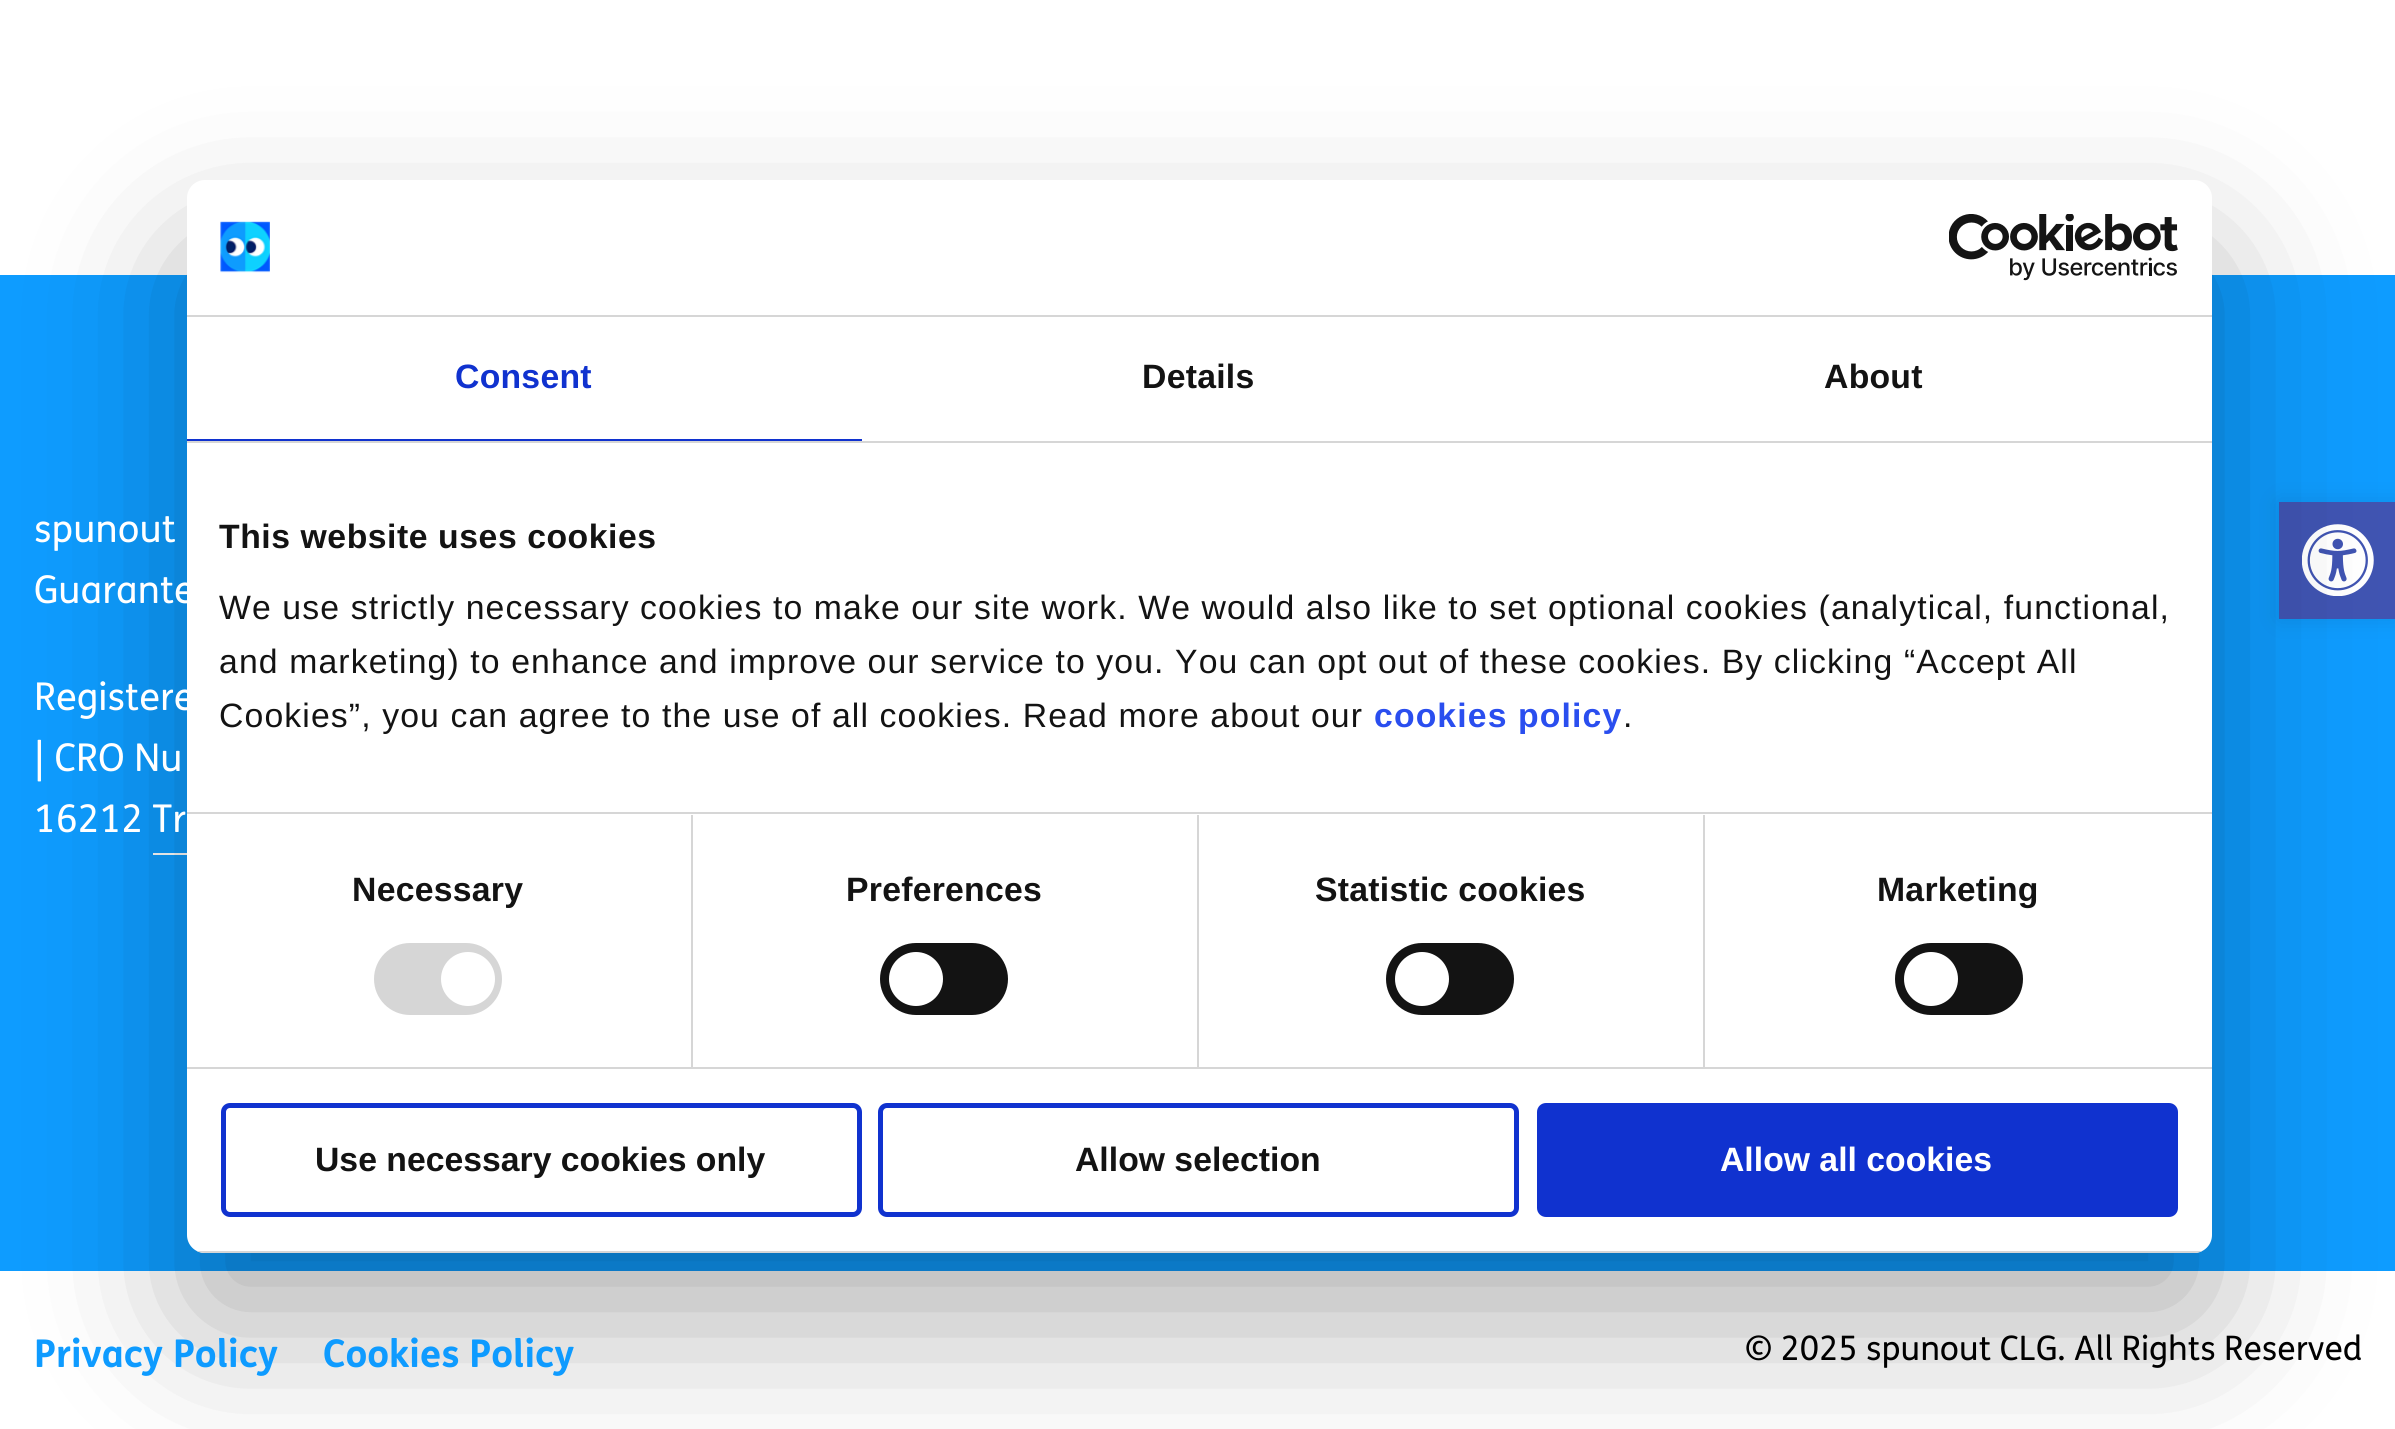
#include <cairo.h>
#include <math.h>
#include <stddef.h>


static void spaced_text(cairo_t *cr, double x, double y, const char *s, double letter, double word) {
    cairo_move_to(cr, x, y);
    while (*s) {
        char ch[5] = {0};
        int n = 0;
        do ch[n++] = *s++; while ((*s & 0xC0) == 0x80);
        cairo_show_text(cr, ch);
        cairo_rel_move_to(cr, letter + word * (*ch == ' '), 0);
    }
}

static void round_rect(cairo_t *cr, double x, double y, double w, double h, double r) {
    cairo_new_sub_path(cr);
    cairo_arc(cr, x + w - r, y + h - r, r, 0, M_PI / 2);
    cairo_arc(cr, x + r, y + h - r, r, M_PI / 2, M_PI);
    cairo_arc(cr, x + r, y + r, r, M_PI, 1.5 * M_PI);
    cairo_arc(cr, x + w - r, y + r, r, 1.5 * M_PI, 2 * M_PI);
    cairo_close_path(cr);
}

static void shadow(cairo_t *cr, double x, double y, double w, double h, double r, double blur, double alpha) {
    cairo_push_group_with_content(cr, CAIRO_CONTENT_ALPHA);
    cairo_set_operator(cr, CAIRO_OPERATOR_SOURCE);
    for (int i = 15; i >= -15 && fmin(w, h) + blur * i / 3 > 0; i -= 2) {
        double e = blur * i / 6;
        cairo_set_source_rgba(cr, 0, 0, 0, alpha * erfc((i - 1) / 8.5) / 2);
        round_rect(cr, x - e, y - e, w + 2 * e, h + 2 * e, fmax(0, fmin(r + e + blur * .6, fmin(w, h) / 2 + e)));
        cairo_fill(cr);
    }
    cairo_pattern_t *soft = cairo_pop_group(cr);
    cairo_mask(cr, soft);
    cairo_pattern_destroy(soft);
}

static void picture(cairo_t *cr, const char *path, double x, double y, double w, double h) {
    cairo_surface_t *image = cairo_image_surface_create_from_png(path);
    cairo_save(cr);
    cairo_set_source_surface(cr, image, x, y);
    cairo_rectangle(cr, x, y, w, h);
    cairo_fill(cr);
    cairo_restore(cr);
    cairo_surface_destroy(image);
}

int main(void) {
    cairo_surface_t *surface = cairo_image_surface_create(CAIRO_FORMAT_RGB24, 2395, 1429);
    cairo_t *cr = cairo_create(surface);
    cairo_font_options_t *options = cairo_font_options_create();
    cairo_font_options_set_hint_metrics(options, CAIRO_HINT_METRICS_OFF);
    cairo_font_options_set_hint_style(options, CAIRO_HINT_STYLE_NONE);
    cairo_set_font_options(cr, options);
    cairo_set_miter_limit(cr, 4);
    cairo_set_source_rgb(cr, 1, 1, 1);
    cairo_paint(cr);
    cairo_set_source_rgb(cr, 0.055, 0.612, 1);
    cairo_rectangle(cr, 0, 275, 2395, 996);
    cairo_fill(cr);
    cairo_set_source_rgb(cr, 0, 0, 0);
    shadow(cr, 2279, 502, 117, 117, 0, 11, 0.1);
    cairo_set_source_rgb(cr, 0.251, 0.329, 0.698);
    cairo_rectangle(cr, 2279, 502, 116, 117);
    cairo_fill(cr);
    picture(cr, "img3.png", 2302, 524, 72, 72);
    cairo_set_source_rgb(cr, 1, 1, 1);
    cairo_rectangle(cr, 153, 853, 34, 2);
    cairo_fill(cr);
    cairo_set_source_rgb(cr, 0, 0, 0);
    shadow(cr, 187, 252, 2025, 1073, 18, 76.5, 0.3);
    cairo_set_source_rgb(cr, 1, 1, 1);
    round_rect(cr, 187, 180, 2025, 1073, 18);
    cairo_fill(cr);
    cairo_set_source_rgb(cr, 0.839, 0.839, 0.839);
    cairo_rectangle(cr, 187, 315, 2025, 2);
    cairo_fill(cr);
    picture(cr, "img1.png", 220, 221, 50, 52);
    picture(cr, "img2.png", 1949, 214, 229, 67);
    cairo_rectangle(cr, 187, 441, 2025, 2);
    cairo_fill(cr);
    cairo_set_source_rgb(cr, 0.063, 0.196, 0.812);
    cairo_rectangle(cr, 187, 439, 675, 2);
    cairo_fill(cr);
    cairo_select_font_face(cr, "Liberation Sans", CAIRO_FONT_SLANT_NORMAL, CAIRO_FONT_WEIGHT_BOLD);
    cairo_set_font_size(cr, 33.75);
    spaced_text(cr, 455, 388, "Consent", 0.25, 0);
    cairo_set_source_rgb(cr, 0.078, 0.078, 0.078);
    spaced_text(cr, 1142, 388, "Details", 0.25, 0);
    spaced_text(cr, 1824, 388, "About", 0.25, 0);
    cairo_set_source_rgb(cr, 0.839, 0.839, 0.839);
    cairo_rectangle(cr, 187, 812, 2025, 2);
    cairo_fill(cr);
    cairo_set_source_rgb(cr, 0.078, 0.078, 0.078);
    spaced_text(cr, 219, 548, "This website uses cookies", 0.55, 0);
    cairo_select_font_face(cr, "Liberation Sans", CAIRO_FONT_SLANT_NORMAL, CAIRO_FONT_WEIGHT_NORMAL);
    spaced_text(cr, 219, 619, "We use strictly necessary cookies to make our site work. We would also like to set optional cookies (analytical, functional,", 1.12, 0);
    spaced_text(cr, 219, 673, "and marketing) to enhance and improve our service to you. You can opt out of these cookies. By clicking “Accept All", 1.12, 0);
    spaced_text(cr, 219, 727, "Cookies”, you can agree to the use of all cookies. Read more about our", 1.12, 0);
    cairo_select_font_face(cr, "Liberation Sans", CAIRO_FONT_SLANT_NORMAL, CAIRO_FONT_WEIGHT_BOLD);
    cairo_set_source_rgb(cr, 0.165, 0.306, 0.937);
    spaced_text(cr, 1374, 727, "cookies policy", 1.12, 0);
    cairo_select_font_face(cr, "Liberation Sans", CAIRO_FONT_SLANT_NORMAL, CAIRO_FONT_WEIGHT_NORMAL);
    cairo_set_source_rgb(cr, 0.078, 0.078, 0.078);
    spaced_text(cr, 1623, 727, ".", 1.12, 0);
    cairo_set_source_rgb(cr, 0.839, 0.839, 0.839);
    cairo_rectangle(cr, 187, 1067, 2025, 2);
    cairo_fill(cr);
    cairo_rectangle(cr, 691, 815, 2, 252);
    cairo_fill(cr);
    cairo_select_font_face(cr, "Liberation Sans", CAIRO_FONT_SLANT_NORMAL, CAIRO_FONT_WEIGHT_BOLD);
    cairo_set_source_rgb(cr, 0.078, 0.078, 0.078);
    spaced_text(cr, 352, 901, "Necessary", 0.25, 0);
    cairo_set_source_rgb(cr, 0.839, 0.839, 0.839);
    round_rect(cr, 374, 943, 128, 72, 36);
    cairo_fill(cr);
    cairo_set_source_rgb(cr, 1, 1, 1);
    cairo_arc(cr, 468, 979, 27, 0, 2 * M_PI);
    cairo_fill(cr);
    cairo_set_source_rgb(cr, 0.839, 0.839, 0.839);
    cairo_rectangle(cr, 1197, 815, 2, 252);
    cairo_fill(cr);
    cairo_set_source_rgb(cr, 0.078, 0.078, 0.078);
    spaced_text(cr, 846, 901, "Preferences", 0.25, 0);
    round_rect(cr, 880, 943, 128, 72, 36);
    cairo_fill(cr);
    cairo_set_source_rgb(cr, 1, 1, 1);
    cairo_arc(cr, 916, 979, 27, 0, 2 * M_PI);
    cairo_fill(cr);
    cairo_set_source_rgb(cr, 0.839, 0.839, 0.839);
    cairo_rectangle(cr, 1703, 815, 2, 252);
    cairo_fill(cr);
    cairo_set_source_rgb(cr, 0.078, 0.078, 0.078);
    spaced_text(cr, 1315, 901, "Statistic cookies", 0.25, 0);
    round_rect(cr, 1386, 943, 128, 72, 36);
    cairo_fill(cr);
    cairo_set_source_rgb(cr, 1, 1, 1);
    cairo_arc(cr, 1422, 979, 27, 0, 2 * M_PI);
    cairo_fill(cr);
    cairo_set_source_rgb(cr, 0.078, 0.078, 0.078);
    spaced_text(cr, 1877, 901, "Marketing", 0.25, 0);
    round_rect(cr, 1895, 943, 128, 72, 36);
    cairo_fill(cr);
    cairo_set_source_rgb(cr, 1, 1, 1);
    cairo_arc(cr, 1931, 979, 27, 0, 2 * M_PI);
    cairo_fill(cr);
    cairo_save(cr);
    round_rect(cr, 187, 180, 2025, 1073, 18);
    cairo_clip(cr);
    cairo_set_source_rgb(cr, 0.839, 0.839, 0.839);
    cairo_rectangle(cr, 197, 1251, 2005, 2);
    cairo_fill(cr);
    cairo_restore(cr);
    round_rect(cr, 223.5, 1105.5, 636, 109, 6.5);
    cairo_set_source_rgb(cr, 0.063, 0.196, 0.812);
    cairo_set_line_width(cr, 5);
    cairo_stroke(cr);
    cairo_set_source_rgb(cr, 0.078, 0.078, 0.078);
    cairo_move_to(cr, 315, 1171);
    cairo_show_text(cr, "Use necessary cookies only");
    round_rect(cr, 880.5, 1105.5, 636, 109, 6.5);
    cairo_set_source_rgb(cr, 0.063, 0.196, 0.812);
    cairo_stroke(cr);
    cairo_set_source_rgb(cr, 0.078, 0.078, 0.078);
    cairo_move_to(cr, 1075, 1171);
    cairo_show_text(cr, "Allow selection");
    cairo_set_source_rgb(cr, 0.063, 0.196, 0.812);
    round_rect(cr, 1539.5, 1105.5, 636, 109, 6.5);
    cairo_fill_preserve(cr);
    cairo_stroke(cr);
    cairo_set_source_rgb(cr, 1, 1, 1);
    cairo_move_to(cr, 1720, 1171);
    cairo_show_text(cr, "Allow all cookies");
    cairo_select_font_face(cr, "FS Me", CAIRO_FONT_SLANT_NORMAL, CAIRO_FONT_WEIGHT_NORMAL);
    cairo_set_font_size(cr, 38.25);
    cairo_move_to(cr, 34, 542);
    cairo_show_text(cr, "spunout");
    cairo_move_to(cr, 34, 603);
    cairo_show_text(cr, "Guarante");
    cairo_move_to(cr, 34, 710);
    cairo_show_text(cr, "Registere");
    cairo_move_to(cr, 34, 771);
    cairo_show_text(cr, "| CRO Nu");
    cairo_move_to(cr, 34, 832);
    cairo_show_text(cr, "16212 Tr");
    cairo_select_font_face(cr, "FS Me", CAIRO_FONT_SLANT_NORMAL, CAIRO_FONT_WEIGHT_BOLD);
    cairo_set_source_rgb(cr, 0.055, 0.608, 1);
    cairo_move_to(cr, 34, 1367);
    cairo_show_text(cr, "Privacy Policy");
    cairo_move_to(cr, 323, 1367);
    cairo_show_text(cr, "Cookies Policy");
    cairo_select_font_face(cr, "FS Me", CAIRO_FONT_SLANT_NORMAL, CAIRO_FONT_WEIGHT_NORMAL);
    cairo_set_font_size(cr, 33.75);
    cairo_set_source_rgb(cr, 0, 0, 0);
    cairo_move_to(cr, 1745, 1360);
    cairo_show_text(cr, "© 2025 spunout CLG. All Rights Reserved");
    cairo_surface_write_to_png(surface, "page.png");
    cairo_font_options_destroy(options);
    cairo_destroy(cr);
    cairo_surface_destroy(surface);
    return 0;
}
